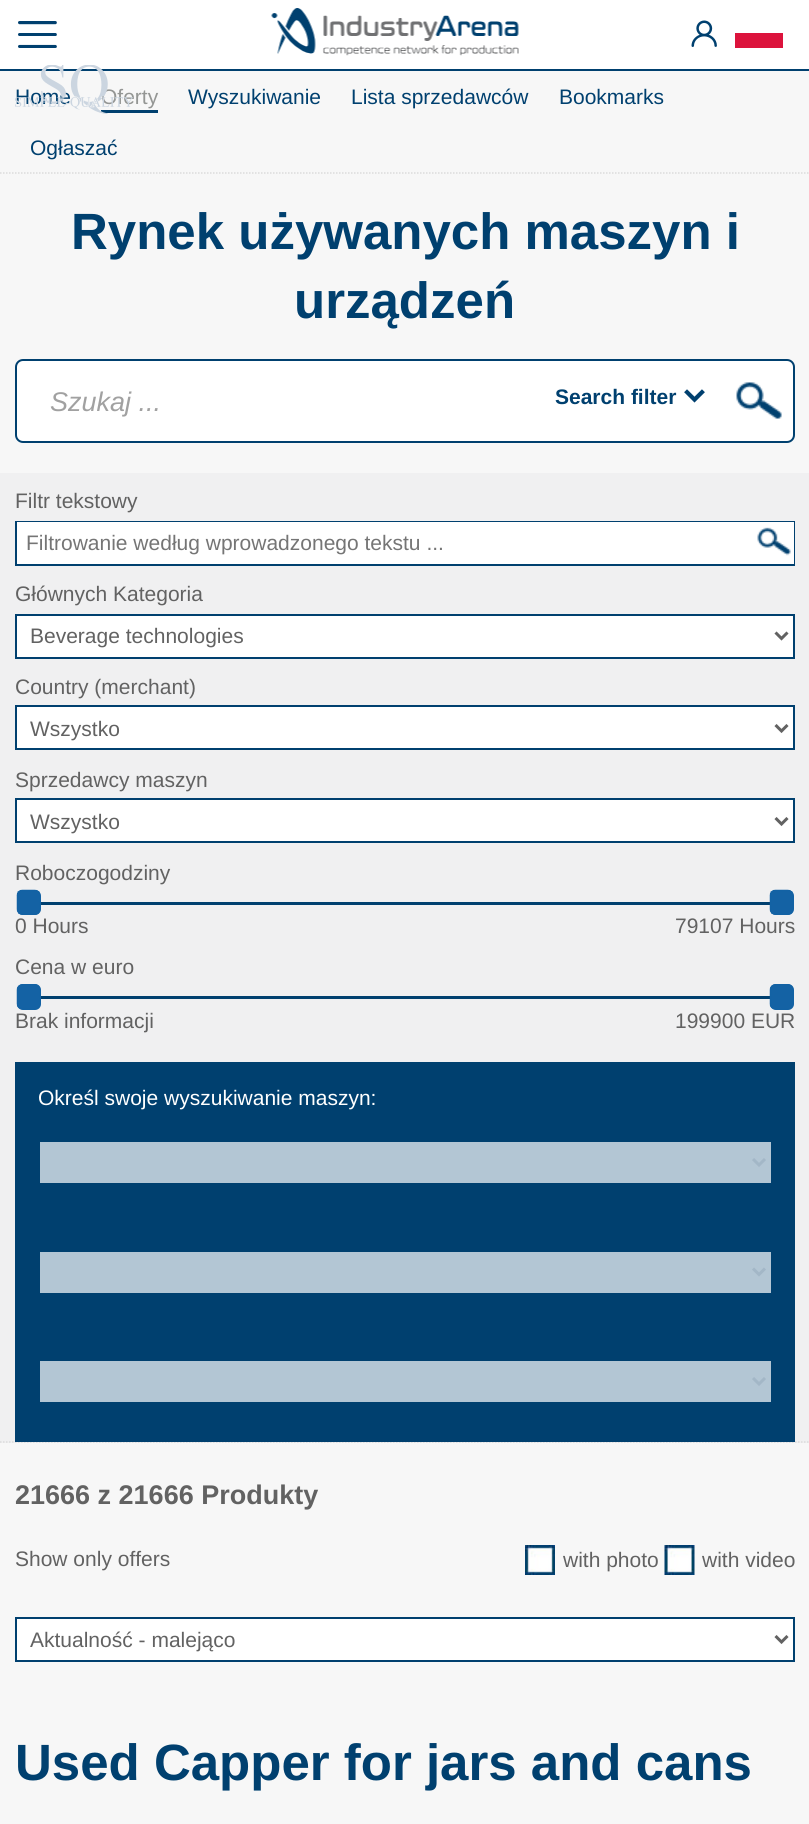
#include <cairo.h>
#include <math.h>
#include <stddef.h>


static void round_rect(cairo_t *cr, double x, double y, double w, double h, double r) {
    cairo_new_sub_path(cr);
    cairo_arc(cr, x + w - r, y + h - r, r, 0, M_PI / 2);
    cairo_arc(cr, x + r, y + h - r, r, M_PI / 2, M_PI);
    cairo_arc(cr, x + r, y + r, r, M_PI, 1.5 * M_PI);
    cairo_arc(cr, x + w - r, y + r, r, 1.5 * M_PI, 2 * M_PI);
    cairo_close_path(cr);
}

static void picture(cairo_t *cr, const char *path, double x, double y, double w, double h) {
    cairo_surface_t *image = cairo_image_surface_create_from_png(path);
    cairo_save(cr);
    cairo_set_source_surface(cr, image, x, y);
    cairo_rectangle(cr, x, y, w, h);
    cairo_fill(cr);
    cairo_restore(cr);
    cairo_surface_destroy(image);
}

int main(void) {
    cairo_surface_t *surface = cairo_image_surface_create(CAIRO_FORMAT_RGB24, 809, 1824);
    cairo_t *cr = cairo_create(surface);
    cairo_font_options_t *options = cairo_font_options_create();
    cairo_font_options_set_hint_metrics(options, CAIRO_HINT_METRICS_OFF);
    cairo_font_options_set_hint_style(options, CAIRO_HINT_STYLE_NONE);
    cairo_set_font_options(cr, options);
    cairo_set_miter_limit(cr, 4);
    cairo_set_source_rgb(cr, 0.965, 0.965, 0.965);
    cairo_paint(cr);
    cairo_set_source_rgb(cr, 1, 1, 1);
    cairo_rectangle(cr, 0, 0, 809, 69);
    cairo_fill(cr);
    cairo_set_source_rgb(cr, 0, 0.251, 0.435);
    cairo_rectangle(cr, 0, 69, 809, 2);
    cairo_fill(cr);
    picture(cr, "img1.png", 18, 21, 39, 27);
    picture(cr, "img2.png", 271, 8, 248, 48);
    picture(cr, "img3.png", 691, 20, 26, 27);
    cairo_set_source_rgb(cr, 0.863, 0.078, 0.235);
    cairo_rectangle(cr, 735, 33, 48, 15);
    cairo_fill(cr);
    cairo_select_font_face(cr, "Liberation Sans", CAIRO_FONT_SLANT_NORMAL, CAIRO_FONT_WEIGHT_NORMAL);
    cairo_set_font_size(cr, 21);
    cairo_set_source_rgb(cr, 0, 0.251, 0.435);
    cairo_move_to(cr, 15, 104);
    cairo_show_text(cr, "Home");
    cairo_rectangle(cr, 101, 110, 57, 3);
    cairo_fill(cr);
    cairo_set_source_rgb(cr, 0.58, 0.588, 0.58);
    cairo_move_to(cr, 101, 104);
    cairo_show_text(cr, "Oferty");
    picture(cr, "img4.png", 15, 65, 119, 49);
    cairo_new_path(cr);
    cairo_move_to(cr, 0, 173);
    cairo_line_to(cr, 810, 173);
    cairo_set_source_rgb(cr, 0.859, 0.859, 0.859);
    cairo_set_line_width(cr, 1.5);
    cairo_set_dash(cr, (double[]){1.5, 1.5}, 2, 0);
    cairo_stroke(cr);
    cairo_set_source_rgb(cr, 0, 0.251, 0.435);
    cairo_move_to(cr, 188, 104);
    cairo_show_text(cr, "Wyszukiwanie");
    cairo_move_to(cr, 351, 104);
    cairo_show_text(cr, "Lista sprzedawców");
    cairo_move_to(cr, 559, 104);
    cairo_show_text(cr, "Bookmarks");
    cairo_move_to(cr, 30, 155);
    cairo_show_text(cr, "Ogłaszać");
    cairo_select_font_face(cr, "Liberation Sans", CAIRO_FONT_SLANT_NORMAL, CAIRO_FONT_WEIGHT_BOLD);
    cairo_set_font_size(cr, 51);
    cairo_move_to(cr, 71, 249);
    cairo_show_text(cr, "Rynek używanych maszyn i");
    cairo_move_to(cr, 294, 318);
    cairo_show_text(cr, "urządzeń");
    cairo_set_source_rgb(cr, 1, 1, 1);
    round_rect(cr, 16, 360, 778, 82, 7);
    cairo_fill_preserve(cr);
    cairo_set_source_rgb(cr, 0, 0.251, 0.435);
    cairo_set_line_width(cr, 2);
    cairo_set_dash(cr, NULL, 0, 0);
    cairo_stroke(cr);
    cairo_select_font_face(cr, "Liberation Sans", CAIRO_FONT_SLANT_ITALIC, CAIRO_FONT_WEIGHT_NORMAL);
    cairo_set_font_size(cr, 27);
    cairo_set_source_rgb(cr, 0.631, 0.631, 0.631);
    cairo_move_to(cr, 50, 411);
    cairo_show_text(cr, "Szukaj ...");
    cairo_select_font_face(cr, "Liberation Sans", CAIRO_FONT_SLANT_NORMAL, CAIRO_FONT_WEIGHT_BOLD);
    cairo_set_font_size(cr, 21);
    cairo_set_source_rgb(cr, 0, 0.251, 0.435);
    cairo_move_to(cr, 555, 404);
    cairo_show_text(cr, "Search filter");
    picture(cr, "img5.png", 684, 389, 21, 14);
    picture(cr, "img6.png", 736, 382, 46, 37);
    cairo_set_source_rgb(cr, 0.941, 0.941, 0.945);
    cairo_rectangle(cr, 0, 473, 809, 970);
    cairo_fill(cr);
    cairo_new_path(cr);
    cairo_move_to(cr, 0, 1442);
    cairo_line_to(cr, 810, 1442);
    cairo_set_source_rgb(cr, 0.859, 0.859, 0.859);
    cairo_set_line_width(cr, 1.5);
    cairo_set_dash(cr, (double[]){1.5, 1.5}, 2, 0);
    cairo_stroke(cr);
    cairo_select_font_face(cr, "Liberation Sans", CAIRO_FONT_SLANT_NORMAL, CAIRO_FONT_WEIGHT_NORMAL);
    cairo_set_source_rgb(cr, 0.384, 0.384, 0.384);
    cairo_move_to(cr, 15, 508);
    cairo_show_text(cr, "Filtr tekstowy");
    cairo_rectangle(cr, 16, 522, 778, 43);
    cairo_set_source_rgb(cr, 0, 0.251, 0.435);
    cairo_set_line_width(cr, 2);
    cairo_set_dash(cr, NULL, 0, 0);
    cairo_stroke(cr);
    cairo_set_source_rgb(cr, 1, 1, 1);
    cairo_rectangle(cr, 17, 522, 777, 42);
    cairo_fill(cr);
    cairo_set_source_rgb(cr, 0.459, 0.459, 0.459);
    cairo_move_to(cr, 26, 550);
    cairo_show_text(cr, "Filtrowanie według wprowadzonego tekstu ...");
    picture(cr, "img7.png", 757, 527, 34, 29);
    cairo_set_source_rgb(cr, 0.384, 0.384, 0.384);
    cairo_move_to(cr, 15, 601);
    cairo_show_text(cr, "Głównych Kategoria");
    cairo_set_source_rgb(cr, 1, 1, 1);
    cairo_rectangle(cr, 16, 615, 778, 43);
    cairo_fill_preserve(cr);
    cairo_set_source_rgb(cr, 0, 0.251, 0.435);
    cairo_stroke(cr);
    cairo_new_path(cr);
    cairo_move_to(cr, 775.5, 632.5);
    cairo_line_to(cr, 781.5, 638.5);
    cairo_line_to(cr, 787.5, 632.5);
    cairo_set_source_rgb(cr, 0.384, 0.384, 0.384);
    cairo_set_line_width(cr, 3);
    cairo_stroke(cr);
    cairo_move_to(cr, 30, 643);
    cairo_show_text(cr, "Beverage technologies");
    cairo_move_to(cr, 15, 694);
    cairo_show_text(cr, "Country (merchant)");
    cairo_set_source_rgb(cr, 1, 1, 1);
    cairo_rectangle(cr, 16, 706, 778, 43);
    cairo_fill_preserve(cr);
    cairo_set_source_rgb(cr, 0, 0.251, 0.435);
    cairo_set_line_width(cr, 2);
    cairo_stroke(cr);
    cairo_new_path(cr);
    cairo_move_to(cr, 775.5, 725);
    cairo_line_to(cr, 781.5, 731);
    cairo_line_to(cr, 787.5, 725);
    cairo_set_source_rgb(cr, 0.384, 0.384, 0.384);
    cairo_set_line_width(cr, 3);
    cairo_stroke(cr);
    cairo_move_to(cr, 30, 736);
    cairo_show_text(cr, "Wszystko");
    cairo_move_to(cr, 15, 787);
    cairo_show_text(cr, "Sprzedawcy maszyn");
    cairo_set_source_rgb(cr, 1, 1, 1);
    cairo_rectangle(cr, 16, 799, 778, 43);
    cairo_fill_preserve(cr);
    cairo_set_source_rgb(cr, 0, 0.251, 0.435);
    cairo_set_line_width(cr, 2);
    cairo_stroke(cr);
    cairo_new_path(cr);
    cairo_move_to(cr, 775.5, 818);
    cairo_line_to(cr, 781.5, 824);
    cairo_line_to(cr, 787.5, 818);
    cairo_set_source_rgb(cr, 0.384, 0.384, 0.384);
    cairo_set_line_width(cr, 3);
    cairo_stroke(cr);
    cairo_move_to(cr, 30, 829);
    cairo_show_text(cr, "Wszystko");
    cairo_move_to(cr, 15, 880);
    cairo_show_text(cr, "Roboczogodziny");
    picture(cr, "img8.png", 16, 889, 25, 26);
    round_rect(cr, 18, 891, 22, 23, 5);
    cairo_set_source_rgb(cr, 0.078, 0.384, 0.643);
    cairo_set_line_width(cr, 2);
    cairo_stroke(cr);
    cairo_set_source_rgb(cr, 0, 0.251, 0.435);
    cairo_rectangle(cr, 41, 902, 729, 3);
    cairo_fill(cr);
    picture(cr, "img9.png", 769, 889, 25, 26);
    round_rect(cr, 771, 891, 22, 23, 5);
    cairo_set_source_rgb(cr, 0.078, 0.384, 0.643);
    cairo_stroke(cr);
    cairo_set_source_rgb(cr, 0.384, 0.384, 0.384);
    cairo_move_to(cr, 15, 933);
    cairo_show_text(cr, "0 Hours");
    cairo_move_to(cr, 675, 933);
    cairo_show_text(cr, "79107 Hours");
    cairo_move_to(cr, 15, 974);
    cairo_show_text(cr, "Cena w euro");
    picture(cr, "img10.png", 16, 984, 25, 26);
    round_rect(cr, 18, 985, 22, 24, 5);
    cairo_set_source_rgb(cr, 0.078, 0.384, 0.643);
    cairo_stroke(cr);
    cairo_set_source_rgb(cr, 0, 0.251, 0.435);
    cairo_rectangle(cr, 41, 996, 729, 3);
    cairo_fill(cr);
    picture(cr, "img11.png", 769, 984, 25, 26);
    round_rect(cr, 771, 985, 22, 24, 5);
    cairo_set_source_rgb(cr, 0.078, 0.384, 0.643);
    cairo_stroke(cr);
    cairo_set_source_rgb(cr, 0.384, 0.384, 0.384);
    cairo_move_to(cr, 15, 1028);
    cairo_show_text(cr, "Brak informacji");
    cairo_move_to(cr, 675, 1028);
    cairo_show_text(cr, "199900 EUR");
    cairo_set_source_rgb(cr, 0, 0.251, 0.435);
    cairo_rectangle(cr, 15, 1062, 780, 380);
    cairo_fill(cr);
    cairo_set_source_rgb(cr, 1, 1, 1);
    cairo_move_to(cr, 38, 1105);
    cairo_show_text(cr, "Określ swoje wyszukiwanie maszyn:");
    cairo_set_source_rgb(cr, 0.702, 0.776, 0.831);
    cairo_rectangle(cr, 40, 1142, 731, 41);
    cairo_fill(cr);
    cairo_new_path(cr);
    cairo_move_to(cr, 753, 1159);
    cairo_line_to(cr, 759, 1165);
    cairo_line_to(cr, 765, 1159);
    cairo_set_source_rgb(cr, 0.639, 0.718, 0.78);
    cairo_set_line_width(cr, 3);
    cairo_stroke(cr);
    cairo_set_source_rgb(cr, 0.702, 0.776, 0.831);
    cairo_rectangle(cr, 40, 1252, 731, 41);
    cairo_fill(cr);
    cairo_new_path(cr);
    cairo_move_to(cr, 753, 1268.5);
    cairo_line_to(cr, 759, 1274.5);
    cairo_line_to(cr, 765, 1268.5);
    cairo_set_source_rgb(cr, 0.639, 0.718, 0.78);
    cairo_stroke(cr);
    cairo_set_source_rgb(cr, 0.702, 0.776, 0.831);
    cairo_rectangle(cr, 40, 1361, 731, 41);
    cairo_fill(cr);
    cairo_new_path(cr);
    cairo_move_to(cr, 753, 1378);
    cairo_line_to(cr, 759, 1384);
    cairo_line_to(cr, 765, 1378);
    cairo_set_source_rgb(cr, 0.639, 0.718, 0.78);
    cairo_stroke(cr);
    cairo_select_font_face(cr, "Liberation Sans", CAIRO_FONT_SLANT_NORMAL, CAIRO_FONT_WEIGHT_BOLD);
    cairo_set_font_size(cr, 27);
    cairo_set_source_rgb(cr, 0.384, 0.384, 0.384);
    cairo_move_to(cr, 15, 1504);
    cairo_show_text(cr, "21666 z 21666 Produkty");
    cairo_select_font_face(cr, "Liberation Sans", CAIRO_FONT_SLANT_NORMAL, CAIRO_FONT_WEIGHT_NORMAL);
    cairo_set_font_size(cr, 21);
    cairo_move_to(cr, 15, 1566);
    cairo_show_text(cr, "Show only offers");
    picture(cr, "img12.png", 525, 1545, 30, 30);
    cairo_move_to(cr, 563, 1567);
    cairo_show_text(cr, "with photo");
    picture(cr, "img13.png", 664, 1545, 31, 30);
    cairo_move_to(cr, 702, 1567);
    cairo_show_text(cr, "with video");
    cairo_set_source_rgb(cr, 1, 1, 1);
    cairo_rectangle(cr, 16, 1618, 778, 43);
    cairo_fill_preserve(cr);
    cairo_set_source_rgb(cr, 0, 0.251, 0.435);
    cairo_set_line_width(cr, 2);
    cairo_stroke(cr);
    cairo_new_path(cr);
    cairo_move_to(cr, 775.5, 1636);
    cairo_line_to(cr, 781.5, 1642);
    cairo_line_to(cr, 787.5, 1636);
    cairo_set_source_rgb(cr, 0.384, 0.384, 0.384);
    cairo_set_line_width(cr, 3);
    cairo_stroke(cr);
    cairo_move_to(cr, 30, 1647);
    cairo_show_text(cr, "Aktualność - malejąco");
    cairo_select_font_face(cr, "Liberation Sans", CAIRO_FONT_SLANT_NORMAL, CAIRO_FONT_WEIGHT_BOLD);
    cairo_set_font_size(cr, 51);
    cairo_set_source_rgb(cr, 0, 0.251, 0.435);
    cairo_move_to(cr, 15, 1780);
    cairo_show_text(cr, "Used Capper for jars and cans");
    cairo_surface_write_to_png(surface, "page.png");
    cairo_font_options_destroy(options);
    cairo_destroy(cr);
    cairo_surface_destroy(surface);
    return 0;
}
